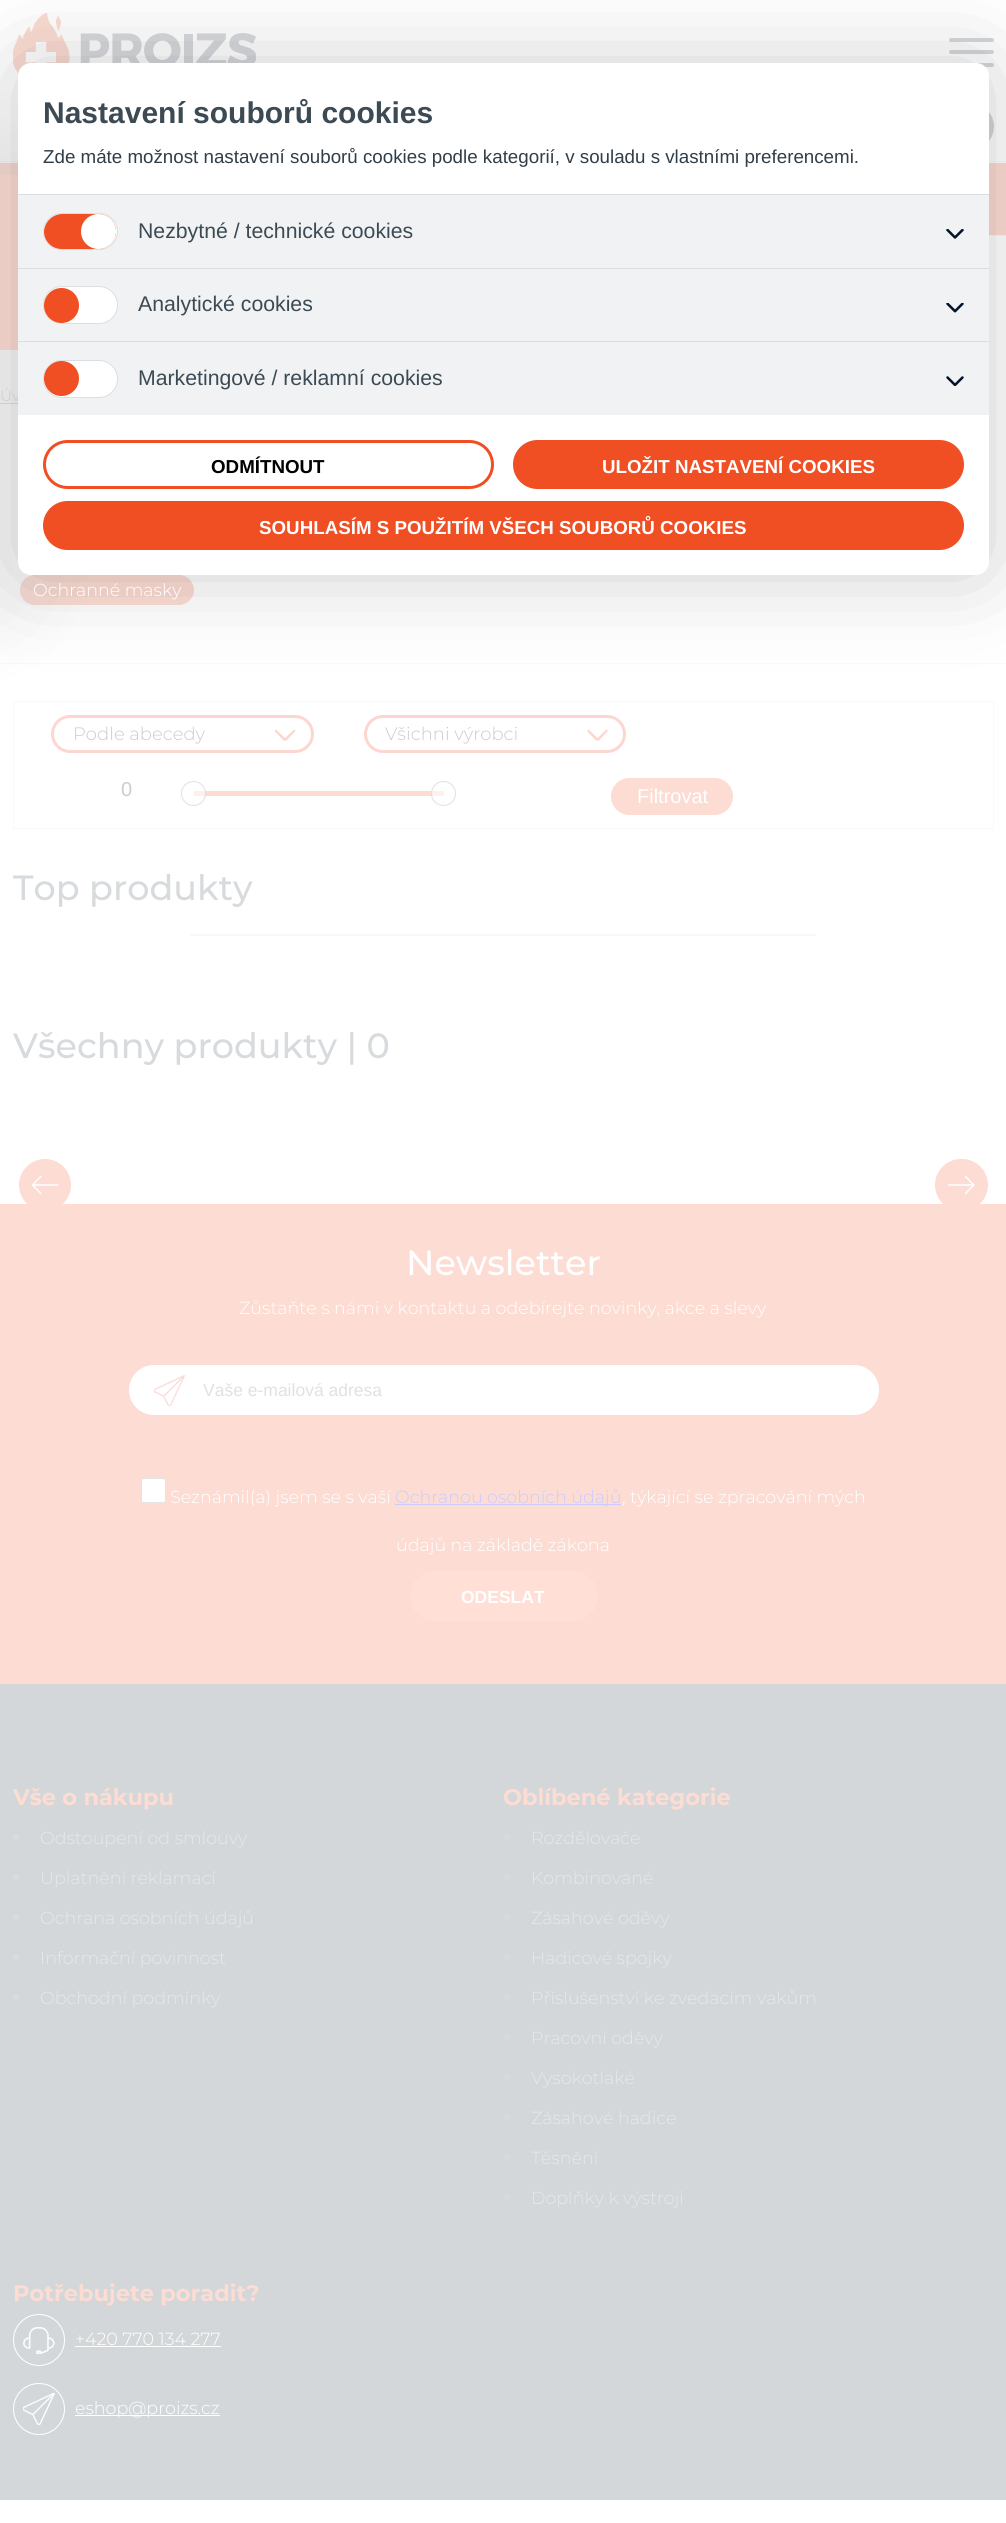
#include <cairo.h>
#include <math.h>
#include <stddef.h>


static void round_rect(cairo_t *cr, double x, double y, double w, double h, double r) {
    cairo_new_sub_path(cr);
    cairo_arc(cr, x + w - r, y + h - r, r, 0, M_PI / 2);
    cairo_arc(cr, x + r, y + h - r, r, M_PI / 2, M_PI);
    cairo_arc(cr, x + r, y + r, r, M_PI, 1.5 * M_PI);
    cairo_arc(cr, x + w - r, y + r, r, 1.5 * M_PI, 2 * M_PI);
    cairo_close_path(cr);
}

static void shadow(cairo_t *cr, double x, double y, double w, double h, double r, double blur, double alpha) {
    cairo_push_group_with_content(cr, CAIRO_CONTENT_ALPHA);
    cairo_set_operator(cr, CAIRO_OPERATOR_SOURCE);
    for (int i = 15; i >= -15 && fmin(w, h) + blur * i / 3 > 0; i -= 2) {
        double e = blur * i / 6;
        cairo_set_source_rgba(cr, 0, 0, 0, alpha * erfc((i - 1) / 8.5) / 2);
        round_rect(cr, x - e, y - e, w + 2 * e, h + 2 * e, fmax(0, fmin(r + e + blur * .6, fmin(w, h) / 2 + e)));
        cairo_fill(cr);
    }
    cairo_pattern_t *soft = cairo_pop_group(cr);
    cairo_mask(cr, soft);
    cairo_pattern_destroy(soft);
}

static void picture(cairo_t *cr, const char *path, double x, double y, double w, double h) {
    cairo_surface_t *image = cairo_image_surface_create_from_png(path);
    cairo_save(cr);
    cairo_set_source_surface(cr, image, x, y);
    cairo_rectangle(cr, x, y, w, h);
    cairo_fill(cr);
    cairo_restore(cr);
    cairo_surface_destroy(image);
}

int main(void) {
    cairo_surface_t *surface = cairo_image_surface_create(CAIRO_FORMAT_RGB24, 1006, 2523);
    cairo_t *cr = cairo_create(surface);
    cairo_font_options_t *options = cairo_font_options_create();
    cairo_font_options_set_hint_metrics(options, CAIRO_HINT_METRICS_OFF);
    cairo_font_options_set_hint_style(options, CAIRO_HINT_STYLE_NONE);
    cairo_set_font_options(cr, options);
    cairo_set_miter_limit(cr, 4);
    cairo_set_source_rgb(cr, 1, 1, 1);
    cairo_paint(cr);
    picture(cr, "img1.png", 13, 13, 243, 62);
    cairo_set_source_rgb(cr, 0.835, 0.847, 0.859);
    round_rect(cr, 769, 103, 225, 47, 23.5);
    cairo_fill(cr);
    cairo_set_source_rgb(cr, 0.976, 0.976, 0.976);
    cairo_rectangle(cr, 0, 161, 1006, 1);
    cairo_fill(cr);
    cairo_rectangle(cr, 989, 235, 17, 1);
    cairo_fill(cr);
    cairo_set_source_rgb(cr, 0.988, 0.863, 0.827);
    cairo_rectangle(cr, 0, 163, 1006, 72);
    cairo_fill(cr);
    cairo_set_source_rgb(cr, 0.878, 0.882, 0.886);
    cairo_rectangle(cr, 0, 403, 18, 1);
    cairo_fill(cr);
    cairo_set_source_rgb(cr, 0.988, 0.863, 0.827);
    round_rect(cr, 20, 575, 174, 30, 15);
    cairo_fill(cr);
    cairo_set_source_rgb(cr, 0.976, 0.976, 0.976);
    cairo_rectangle(cr, 0, 663, 1006, 1);
    cairo_fill(cr);
    cairo_rectangle(cr, 13.5, 701.5, 980, 127);
    cairo_set_line_width(cr, 1);
    cairo_stroke(cr);
    round_rect(cr, 52.5, 716.5, 260, 35, 17.5);
    cairo_set_source_rgb(cr, 0.988, 0.839, 0.812);
    cairo_set_line_width(cr, 3);
    cairo_stroke(cr);
    cairo_set_source_rgb(cr, 0.8, 0.8, 0.8);
    shadow(cr, -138, 125, 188, 521, 63, 25, 0.2);
    cairo_set_source_rgb(cr, 0.988, 0.863, 0.827);
    cairo_rectangle(cr, 0, 175, 18, 175);
    cairo_fill(cr);
    cairo_set_source_rgb(cr, 0.835, 0.847, 0.859);
    round_rect(cr, 949, 38, 45, 4, 2);
    cairo_fill(cr);
    round_rect(cr, 949, 50, 45, 4, 2);
    cairo_fill(cr);
    round_rect(cr, 949, 63, 45, 4, 2);
    cairo_fill(cr);
    cairo_select_font_face(cr, "Montserrat", CAIRO_FONT_SLANT_NORMAL, CAIRO_FONT_WEIGHT_NORMAL);
    cairo_set_font_size(cr, 15);
    cairo_set_source_rgb(cr, 0.878, 0.882, 0.886);
    cairo_move_to(cr, 0, 401);
    cairo_show_text(cr, "Úv");
    cairo_set_source_rgb(cr, 0, 0, 0);
    shadow(cr, 18, 63, 971, 512, 13, 44, 0.2);
    cairo_set_source_rgb(cr, 1, 1, 1);
    round_rect(cr, 18, 63, 971, 512, 13);
    cairo_fill(cr);
    cairo_set_source_rgb(cr, 0.863, 0.875, 0.882);
    cairo_rectangle(cr, 18, 194, 971, 1);
    cairo_fill(cr);
    cairo_select_font_face(cr, "Liberation Sans", CAIRO_FONT_SLANT_NORMAL, CAIRO_FONT_WEIGHT_BOLD);
    cairo_set_font_size(cr, 30);
    cairo_set_source_rgb(cr, 0.235, 0.29, 0.329);
    cairo_move_to(cr, 43, 123);
    cairo_show_text(cr, "Nastavení souborů cookies");
    cairo_select_font_face(cr, "Liberation Sans", CAIRO_FONT_SLANT_NORMAL, CAIRO_FONT_WEIGHT_NORMAL);
    cairo_set_font_size(cr, 18.75);
    cairo_set_source_rgb(cr, 0.184, 0.243, 0.286);
    cairo_move_to(cr, 43, 163);
    cairo_show_text(cr, "Zde máte možnost nastavení souborů cookies podle kategorií, v souladu s vlastními preferencemi.");
    cairo_set_source_rgb(cr, 0.945, 0.949, 0.953);
    cairo_rectangle(cr, 18, 195, 971, 73);
    cairo_fill(cr);
    cairo_set_source_rgb(cr, 0.863, 0.875, 0.882);
    cairo_rectangle(cr, 18, 268, 971, 1);
    cairo_fill(cr);
    cairo_set_source_rgb(cr, 1, 1, 1);
    round_rect(cr, 43.5, 213.5, 74, 36, 18);
    cairo_fill_preserve(cr);
    cairo_set_source_rgb(cr, 0.863, 0.875, 0.882);
    cairo_set_line_width(cr, 1);
    cairo_stroke(cr);
    cairo_save(cr);
    round_rect(cr, 44, 214, 72, 35, 17.5);
    cairo_clip(cr);
    cairo_set_source_rgb(cr, 0.941, 0.306, 0.137);
    round_rect(cr, 44, 214, 75, 37, 18.5);
    cairo_fill(cr);
    cairo_restore(cr);
    cairo_set_source_rgb(cr, 1, 1, 1);
    cairo_arc(cr, 98.5, 231.5, 17.5, 0, 2 * M_PI);
    cairo_fill(cr);
    cairo_set_font_size(cr, 21.25);
    cairo_set_source_rgb(cr, 0.235, 0.29, 0.329);
    cairo_move_to(cr, 138, 238);
    cairo_show_text(cr, "Nezbytné / technické cookies");
    picture(cr, "img2.png", 946, 229, 18, 10);
    cairo_set_source_rgb(cr, 0.945, 0.949, 0.953);
    cairo_rectangle(cr, 18, 269, 971, 146);
    cairo_fill(cr);
    cairo_set_source_rgb(cr, 0.863, 0.875, 0.882);
    cairo_rectangle(cr, 18, 341, 971, 1);
    cairo_fill(cr);
    cairo_set_source_rgb(cr, 1, 1, 1);
    round_rect(cr, 43.5, 286.5, 74, 37, 18.5);
    cairo_fill_preserve(cr);
    cairo_set_source_rgb(cr, 0.863, 0.875, 0.882);
    cairo_stroke(cr);
    cairo_set_source_rgb(cr, 0.941, 0.306, 0.137);
    cairo_arc(cr, 61.5, 305.5, 17.5, 0, 2 * M_PI);
    cairo_fill(cr);
    cairo_set_source_rgb(cr, 0.235, 0.29, 0.329);
    cairo_move_to(cr, 138, 311);
    cairo_show_text(cr, "Analytické cookies");
    picture(cr, "img3.png", 946, 303, 18, 10);
    cairo_set_source_rgb(cr, 1, 1, 1);
    round_rect(cr, 43.5, 360.5, 74, 37, 18.5);
    cairo_fill_preserve(cr);
    cairo_set_source_rgb(cr, 0.863, 0.875, 0.882);
    cairo_stroke(cr);
    cairo_set_source_rgb(cr, 0.941, 0.306, 0.137);
    cairo_arc(cr, 61.5, 378.5, 17.5, 0, 2 * M_PI);
    cairo_fill(cr);
    cairo_set_source_rgb(cr, 0.235, 0.29, 0.329);
    cairo_move_to(cr, 138, 385);
    cairo_show_text(cr, "Marketingové / reklamní cookies");
    picture(cr, "img4.png", 946, 376, 18, 10);
    round_rect(cr, 44.5, 441.5, 448, 46, 23);
    cairo_set_source_rgb(cr, 0.941, 0.306, 0.137);
    cairo_set_line_width(cr, 3);
    cairo_stroke(cr);
    cairo_select_font_face(cr, "Liberation Sans", CAIRO_FONT_SLANT_NORMAL, CAIRO_FONT_WEIGHT_BOLD);
    cairo_set_font_size(cr, 18.75);
    cairo_set_source_rgb(cr, 0, 0, 0);
    cairo_move_to(cr, 211, 473);
    cairo_show_text(cr, "ODMÍTNOUT");
    cairo_set_source_rgb(cr, 0.941, 0.306, 0.137);
    round_rect(cr, 513, 440, 451, 49, 24.5);
    cairo_fill(cr);
    cairo_set_source_rgb(cr, 1, 1, 1);
    cairo_move_to(cr, 602, 473);
    cairo_show_text(cr, "ULOŽIT NASTAVENÍ COOKIES");
    cairo_set_source_rgb(cr, 0.941, 0.306, 0.137);
    round_rect(cr, 43, 501, 921, 49, 24.5);
    cairo_fill(cr);
    cairo_set_source_rgb(cr, 1, 1, 1);
    cairo_move_to(cr, 259, 534);
    cairo_show_text(cr, "SOUHLASÍM S POUŽITÍM VŠECH SOUBORŮ COOKIES");
    cairo_select_font_face(cr, "Montserrat Light", CAIRO_FONT_SLANT_NORMAL, CAIRO_FONT_WEIGHT_NORMAL);
    cairo_set_font_size(cr, 17.5);
    cairo_move_to(cr, 33, 596);
    cairo_show_text(cr, "Ochranné masky");
    cairo_set_font_size(cr, 18);
    cairo_set_source_rgb(cr, 0.8, 0.8, 0.8);
    cairo_move_to(cr, 73, 740);
    cairo_show_text(cr, "Podle abecedy");
    cairo_set_source_rgb(cr, 0.988, 0.839, 0.812);
    cairo_new_path(cr);
    cairo_move_to(cr, 294, 729.5);
    cairo_line_to(cr, 295.5, 731);
    cairo_line_to(cr, 286, 741);
    cairo_line_to(cr, 284, 739);
    cairo_close_path(cr);
    cairo_fill(cr);
    cairo_new_path(cr);
    cairo_move_to(cr, 276, 729.5);
    cairo_line_to(cr, 286, 739);
    cairo_line_to(cr, 284, 741);
    cairo_line_to(cr, 274.5, 731);
    cairo_close_path(cr);
    cairo_fill(cr);
    round_rect(cr, 365.5, 716.5, 259, 35, 17.5);
    cairo_stroke(cr);
    cairo_set_source_rgb(cr, 0.8, 0.8, 0.8);
    cairo_move_to(cr, 385, 740);
    cairo_show_text(cr, "Všichni výrobci");
    cairo_set_source_rgb(cr, 0.988, 0.839, 0.812);
    cairo_new_path(cr);
    cairo_move_to(cr, 606.5, 729.5);
    cairo_line_to(cr, 608, 731);
    cairo_line_to(cr, 598.5, 741);
    cairo_line_to(cr, 596.5, 739);
    cairo_close_path(cr);
    cairo_fill(cr);
    cairo_new_path(cr);
    cairo_move_to(cr, 588.5, 729.5);
    cairo_line_to(cr, 598.5, 739);
    cairo_line_to(cr, 596.5, 741);
    cairo_line_to(cr, 587, 731);
    cairo_close_path(cr);
    cairo_fill(cr);
    cairo_select_font_face(cr, "Liberation Sans", CAIRO_FONT_SLANT_NORMAL, CAIRO_FONT_WEIGHT_NORMAL);
    cairo_set_font_size(cr, 20);
    cairo_set_source_rgb(cr, 0.8, 0.8, 0.8);
    cairo_move_to(cr, 121, 796);
    cairo_show_text(cr, "0");
    cairo_set_source_rgb(cr, 0.988, 0.863, 0.827);
    cairo_rectangle(cr, 194, 791, 250, 5);
    cairo_fill(cr);
    cairo_set_source_rgba(cr, 1, 1, 1, 0.6);
    cairo_arc(cr, 193.5, 793.5, 12.5, 0, 2 * M_PI);
    cairo_fill(cr);
    cairo_arc(cr, 193.5, 793.5, 12, 0, 2 * M_PI);
    cairo_set_source_rgba(cr, 0.8, 0.8, 0.8, 0.6);
    cairo_set_line_width(cr, 1);
    cairo_stroke(cr);
    cairo_set_source_rgba(cr, 1, 1, 1, 0.6);
    cairo_arc(cr, 443.5, 793.5, 12.5, 0, 2 * M_PI);
    cairo_fill(cr);
    cairo_arc(cr, 443.5, 793.5, 12, 0, 2 * M_PI);
    cairo_set_source_rgba(cr, 0.8, 0.8, 0.8, 0.6);
    cairo_stroke(cr);
    cairo_set_source_rgb(cr, 0.988, 0.863, 0.827);
    round_rect(cr, 611, 778, 122, 37, 18.5);
    cairo_fill(cr);
    cairo_set_source_rgb(cr, 1, 1, 1);
    cairo_move_to(cr, 637, 803);
    cairo_show_text(cr, "Filtrovat");
    cairo_select_font_face(cr, "Montserrat Medium", CAIRO_FONT_SLANT_NORMAL, CAIRO_FONT_WEIGHT_NORMAL);
    cairo_set_font_size(cr, 35);
    cairo_set_source_rgb(cr, 0.847, 0.859, 0.867);
    cairo_move_to(cr, 13, 900);
    cairo_show_text(cr, "Top produkty");
    cairo_set_source_rgb(cr, 0.976, 0.976, 0.976);
    cairo_rectangle(cr, 190, 934, 626, 2);
    cairo_fill(cr);
    cairo_rectangle(cr, 190, 934, 1, 3);
    cairo_fill(cr);
    cairo_set_source_rgb(cr, 0.988, 0.863, 0.827);
    cairo_rectangle(cr, 0, 1204, 1006, 480);
    cairo_fill(cr);
    cairo_arc(cr, 45, 1185, 26, 0, 2 * M_PI);
    cairo_fill(cr);
    picture(cr, "img5.png", 31, 1175, 28, 20);
    round_rect(cr, 935, 1159, 53, 52, 26);
    cairo_fill(cr);
    picture(cr, "img6.png", 948, 1175, 27, 20);
    cairo_set_source_rgb(cr, 0.847, 0.859, 0.867);
    cairo_move_to(cr, 13, 1058);
    cairo_show_text(cr, "Všechny produkty | 0");
    cairo_set_source_rgb(cr, 1, 1, 1);
    cairo_move_to(cr, 406, 1275);
    cairo_show_text(cr, "Newsletter");
    cairo_select_font_face(cr, "Montserrat Light", CAIRO_FONT_SLANT_NORMAL, CAIRO_FONT_WEIGHT_NORMAL);
    cairo_set_font_size(cr, 17.5);
    cairo_move_to(cr, 239, 1314);
    cairo_show_text(cr, "Zůstaňte s námi v kontaktu a odebírejte novinky, akce a slevy");
    round_rect(cr, 129, 1365, 750, 50, 25);
    cairo_fill(cr);
    picture(cr, "img7.png", 154, 1375, 31, 31);
    cairo_select_font_face(cr, "Liberation Sans", CAIRO_FONT_SLANT_NORMAL, CAIRO_FONT_WEIGHT_NORMAL);
    cairo_set_source_rgb(cr, 0.878, 0.882, 0.886);
    cairo_move_to(cr, 203, 1396);
    cairo_show_text(cr, "Vaše e-mailová adresa");
    cairo_set_source_rgb(cr, 1, 1, 1);
    round_rect(cr, 141.5, 1478.5, 24, 24, 2);
    cairo_fill_preserve(cr);
    cairo_set_source_rgb(cr, 0.894, 0.894, 0.894);
    cairo_stroke(cr);
    cairo_select_font_face(cr, "Montserrat Light", CAIRO_FONT_SLANT_NORMAL, CAIRO_FONT_WEIGHT_NORMAL);
    cairo_set_source_rgb(cr, 1, 1, 1);
    cairo_move_to(cr, 170, 1503);
    cairo_show_text(cr, "Seznámil(a) jsem se s vaší");
    cairo_set_source_rgb(cr, 0.8, 0.8, 0.988);
    cairo_rectangle(cr, 395, 1504, 226, 1);
    cairo_fill(cr);
    cairo_move_to(cr, 395, 1503);
    cairo_show_text(cr, "Ochranou osobních údajů");
    cairo_set_source_rgb(cr, 1, 1, 1);
    cairo_move_to(cr, 622, 1503);
    cairo_show_text(cr, ", týkající se zpracování mých");
    cairo_move_to(cr, 396, 1551);
    cairo_show_text(cr, "údajů na základě zákona");
    cairo_set_source_rgb(cr, 1, 0.875, 0.839);
    round_rect(cr, 410, 1571, 188, 50, 25);
    cairo_fill(cr);
    cairo_select_font_face(cr, "Liberation Sans", CAIRO_FONT_SLANT_NORMAL, CAIRO_FONT_WEIGHT_BOLD);
    cairo_set_source_rgb(cr, 1, 1, 1);
    cairo_move_to(cr, 461, 1603);
    cairo_show_text(cr, "ODESLAT");
    cairo_set_source_rgb(cr, 0.831, 0.843, 0.851);
    cairo_rectangle(cr, 0, 1684, 1006, 816);
    cairo_fill(cr);
    cairo_select_font_face(cr, "Montserrat", CAIRO_FONT_SLANT_NORMAL, CAIRO_FONT_WEIGHT_BOLD);
    cairo_set_font_size(cr, 22.5);
    cairo_set_source_rgb(cr, 0.988, 0.863, 0.827);
    cairo_move_to(cr, 13, 1805);
    cairo_show_text(cr, "Vše o nákupu");
    cairo_set_source_rgb(cr, 0.847, 0.859, 0.867);
    cairo_new_path(cr);
    cairo_arc(cr, 16, 1837, 3, 0, 2 * M_PI);
    cairo_fill(cr);
    cairo_select_font_face(cr, "Montserrat Light", CAIRO_FONT_SLANT_NORMAL, CAIRO_FONT_WEIGHT_NORMAL);
    cairo_set_font_size(cr, 17.5);
    cairo_set_source_rgb(cr, 0.902, 0.906, 0.91);
    cairo_move_to(cr, 40, 1844);
    cairo_show_text(cr, "Odstoupení od smlouvy");
    cairo_set_source_rgb(cr, 0.847, 0.859, 0.867);
    cairo_new_path(cr);
    cairo_arc(cr, 16, 1877, 3, 0, 2 * M_PI);
    cairo_fill(cr);
    cairo_set_source_rgb(cr, 0.902, 0.906, 0.91);
    cairo_move_to(cr, 40, 1884);
    cairo_show_text(cr, "Uplatnění reklamací");
    cairo_set_source_rgb(cr, 0.847, 0.859, 0.867);
    cairo_new_path(cr);
    cairo_arc(cr, 16, 1917, 3, 0, 2 * M_PI);
    cairo_fill(cr);
    cairo_set_source_rgb(cr, 0.902, 0.906, 0.91);
    cairo_move_to(cr, 40, 1924);
    cairo_show_text(cr, "Ochrana osobních údajů");
    cairo_set_source_rgb(cr, 0.847, 0.859, 0.867);
    cairo_new_path(cr);
    cairo_arc(cr, 16, 1957, 3, 0, 2 * M_PI);
    cairo_fill(cr);
    cairo_set_source_rgb(cr, 0.902, 0.906, 0.91);
    cairo_move_to(cr, 40, 1964);
    cairo_show_text(cr, "Informační povinnost");
    cairo_set_source_rgb(cr, 0.847, 0.859, 0.867);
    cairo_new_path(cr);
    cairo_arc(cr, 16, 1997, 3, 0, 2 * M_PI);
    cairo_fill(cr);
    cairo_set_source_rgb(cr, 0.902, 0.906, 0.91);
    cairo_move_to(cr, 40, 2004);
    cairo_show_text(cr, "Obchodní podmínky");
    cairo_select_font_face(cr, "Montserrat", CAIRO_FONT_SLANT_NORMAL, CAIRO_FONT_WEIGHT_BOLD);
    cairo_set_font_size(cr, 22.5);
    cairo_set_source_rgb(cr, 0.988, 0.863, 0.827);
    cairo_move_to(cr, 503, 1805);
    cairo_show_text(cr, "Oblíbené kategorie");
    cairo_set_source_rgb(cr, 0.847, 0.859, 0.867);
    cairo_new_path(cr);
    cairo_arc(cr, 507, 1837, 3, 0, 2 * M_PI);
    cairo_fill(cr);
    cairo_select_font_face(cr, "Montserrat Light", CAIRO_FONT_SLANT_NORMAL, CAIRO_FONT_WEIGHT_NORMAL);
    cairo_set_font_size(cr, 17.5);
    cairo_set_source_rgb(cr, 0.902, 0.906, 0.91);
    cairo_move_to(cr, 531, 1844);
    cairo_show_text(cr, "Rozdělovače");
    cairo_set_source_rgb(cr, 0.847, 0.859, 0.867);
    cairo_new_path(cr);
    cairo_arc(cr, 507, 1877, 3, 0, 2 * M_PI);
    cairo_fill(cr);
    cairo_set_source_rgb(cr, 0.902, 0.906, 0.91);
    cairo_move_to(cr, 531, 1884);
    cairo_show_text(cr, "Kombinované");
    cairo_set_source_rgb(cr, 0.847, 0.859, 0.867);
    cairo_new_path(cr);
    cairo_arc(cr, 507, 1917, 3, 0, 2 * M_PI);
    cairo_fill(cr);
    cairo_set_source_rgb(cr, 0.902, 0.906, 0.91);
    cairo_move_to(cr, 531, 1924);
    cairo_show_text(cr, "Zásahové oděvy");
    cairo_set_source_rgb(cr, 0.847, 0.859, 0.867);
    cairo_new_path(cr);
    cairo_arc(cr, 507, 1957, 3, 0, 2 * M_PI);
    cairo_fill(cr);
    cairo_set_source_rgb(cr, 0.902, 0.906, 0.91);
    cairo_move_to(cr, 531, 1964);
    cairo_show_text(cr, "Hadicové spojky");
    cairo_set_source_rgb(cr, 0.847, 0.859, 0.867);
    cairo_new_path(cr);
    cairo_arc(cr, 507, 1997, 3, 0, 2 * M_PI);
    cairo_fill(cr);
    cairo_set_source_rgb(cr, 0.902, 0.906, 0.91);
    cairo_move_to(cr, 531, 2004);
    cairo_show_text(cr, "Příslušenství ke zvedacím vakům");
    cairo_set_source_rgb(cr, 0.847, 0.859, 0.867);
    cairo_new_path(cr);
    cairo_arc(cr, 507, 2037, 3, 0, 2 * M_PI);
    cairo_fill(cr);
    cairo_set_source_rgb(cr, 0.902, 0.906, 0.91);
    cairo_move_to(cr, 531, 2044);
    cairo_show_text(cr, "Pracovní oděvy");
    cairo_set_source_rgb(cr, 0.847, 0.859, 0.867);
    cairo_new_path(cr);
    cairo_arc(cr, 507, 2077, 3, 0, 2 * M_PI);
    cairo_fill(cr);
    cairo_set_source_rgb(cr, 0.902, 0.906, 0.91);
    cairo_move_to(cr, 531, 2084);
    cairo_show_text(cr, "Vysokotlaké");
    cairo_set_source_rgb(cr, 0.847, 0.859, 0.867);
    cairo_new_path(cr);
    cairo_arc(cr, 507, 2117, 3, 0, 2 * M_PI);
    cairo_fill(cr);
    cairo_set_source_rgb(cr, 0.902, 0.906, 0.91);
    cairo_move_to(cr, 531, 2124);
    cairo_show_text(cr, "Zásahové hadice");
    cairo_set_source_rgb(cr, 0.847, 0.859, 0.867);
    cairo_new_path(cr);
    cairo_arc(cr, 507, 2157, 3, 0, 2 * M_PI);
    cairo_fill(cr);
    cairo_set_source_rgb(cr, 0.902, 0.906, 0.91);
    cairo_move_to(cr, 531, 2164);
    cairo_show_text(cr, "Těsnění");
    cairo_set_source_rgb(cr, 0.847, 0.859, 0.867);
    cairo_new_path(cr);
    cairo_arc(cr, 507, 2197, 3, 0, 2 * M_PI);
    cairo_fill(cr);
    cairo_set_source_rgb(cr, 0.902, 0.906, 0.91);
    cairo_move_to(cr, 531, 2204);
    cairo_show_text(cr, "Doplňky k výstroji");
    cairo_select_font_face(cr, "Montserrat", CAIRO_FONT_SLANT_NORMAL, CAIRO_FONT_WEIGHT_BOLD);
    cairo_set_font_size(cr, 22.5);
    cairo_set_source_rgb(cr, 0.988, 0.863, 0.827);
    cairo_move_to(cr, 13, 2301);
    cairo_show_text(cr, "Potřebujete poradit?");
    picture(cr, "img8.png", 23, 2326, 32, 28);
    cairo_arc(cr, 39, 2340, 25.5, 0, 2 * M_PI);
    cairo_set_source_rgb(cr, 1, 1, 1);
    cairo_stroke(cr);
    cairo_select_font_face(cr, "Montserrat Light", CAIRO_FONT_SLANT_NORMAL, CAIRO_FONT_WEIGHT_NORMAL);
    cairo_set_font_size(cr, 17.5);
    cairo_move_to(cr, 75, 2345);
    cairo_show_text(cr, "+420 770 134 277");
    cairo_rectangle(cr, 75, 2346, 146, 1);
    cairo_fill(cr);
    picture(cr, "img9.png", 23, 2393, 32, 32);
    cairo_arc(cr, 39, 2409, 25.5, 0, 2 * M_PI);
    cairo_stroke(cr);
    cairo_rectangle(cr, 75, 2415, 145, 1);
    cairo_fill(cr);
    cairo_move_to(cr, 75, 2414);
    cairo_show_text(cr, "eshop@proizs.cz");
    cairo_surface_write_to_png(surface, "page.png");
    cairo_font_options_destroy(options);
    cairo_destroy(cr);
    cairo_surface_destroy(surface);
    return 0;
}
